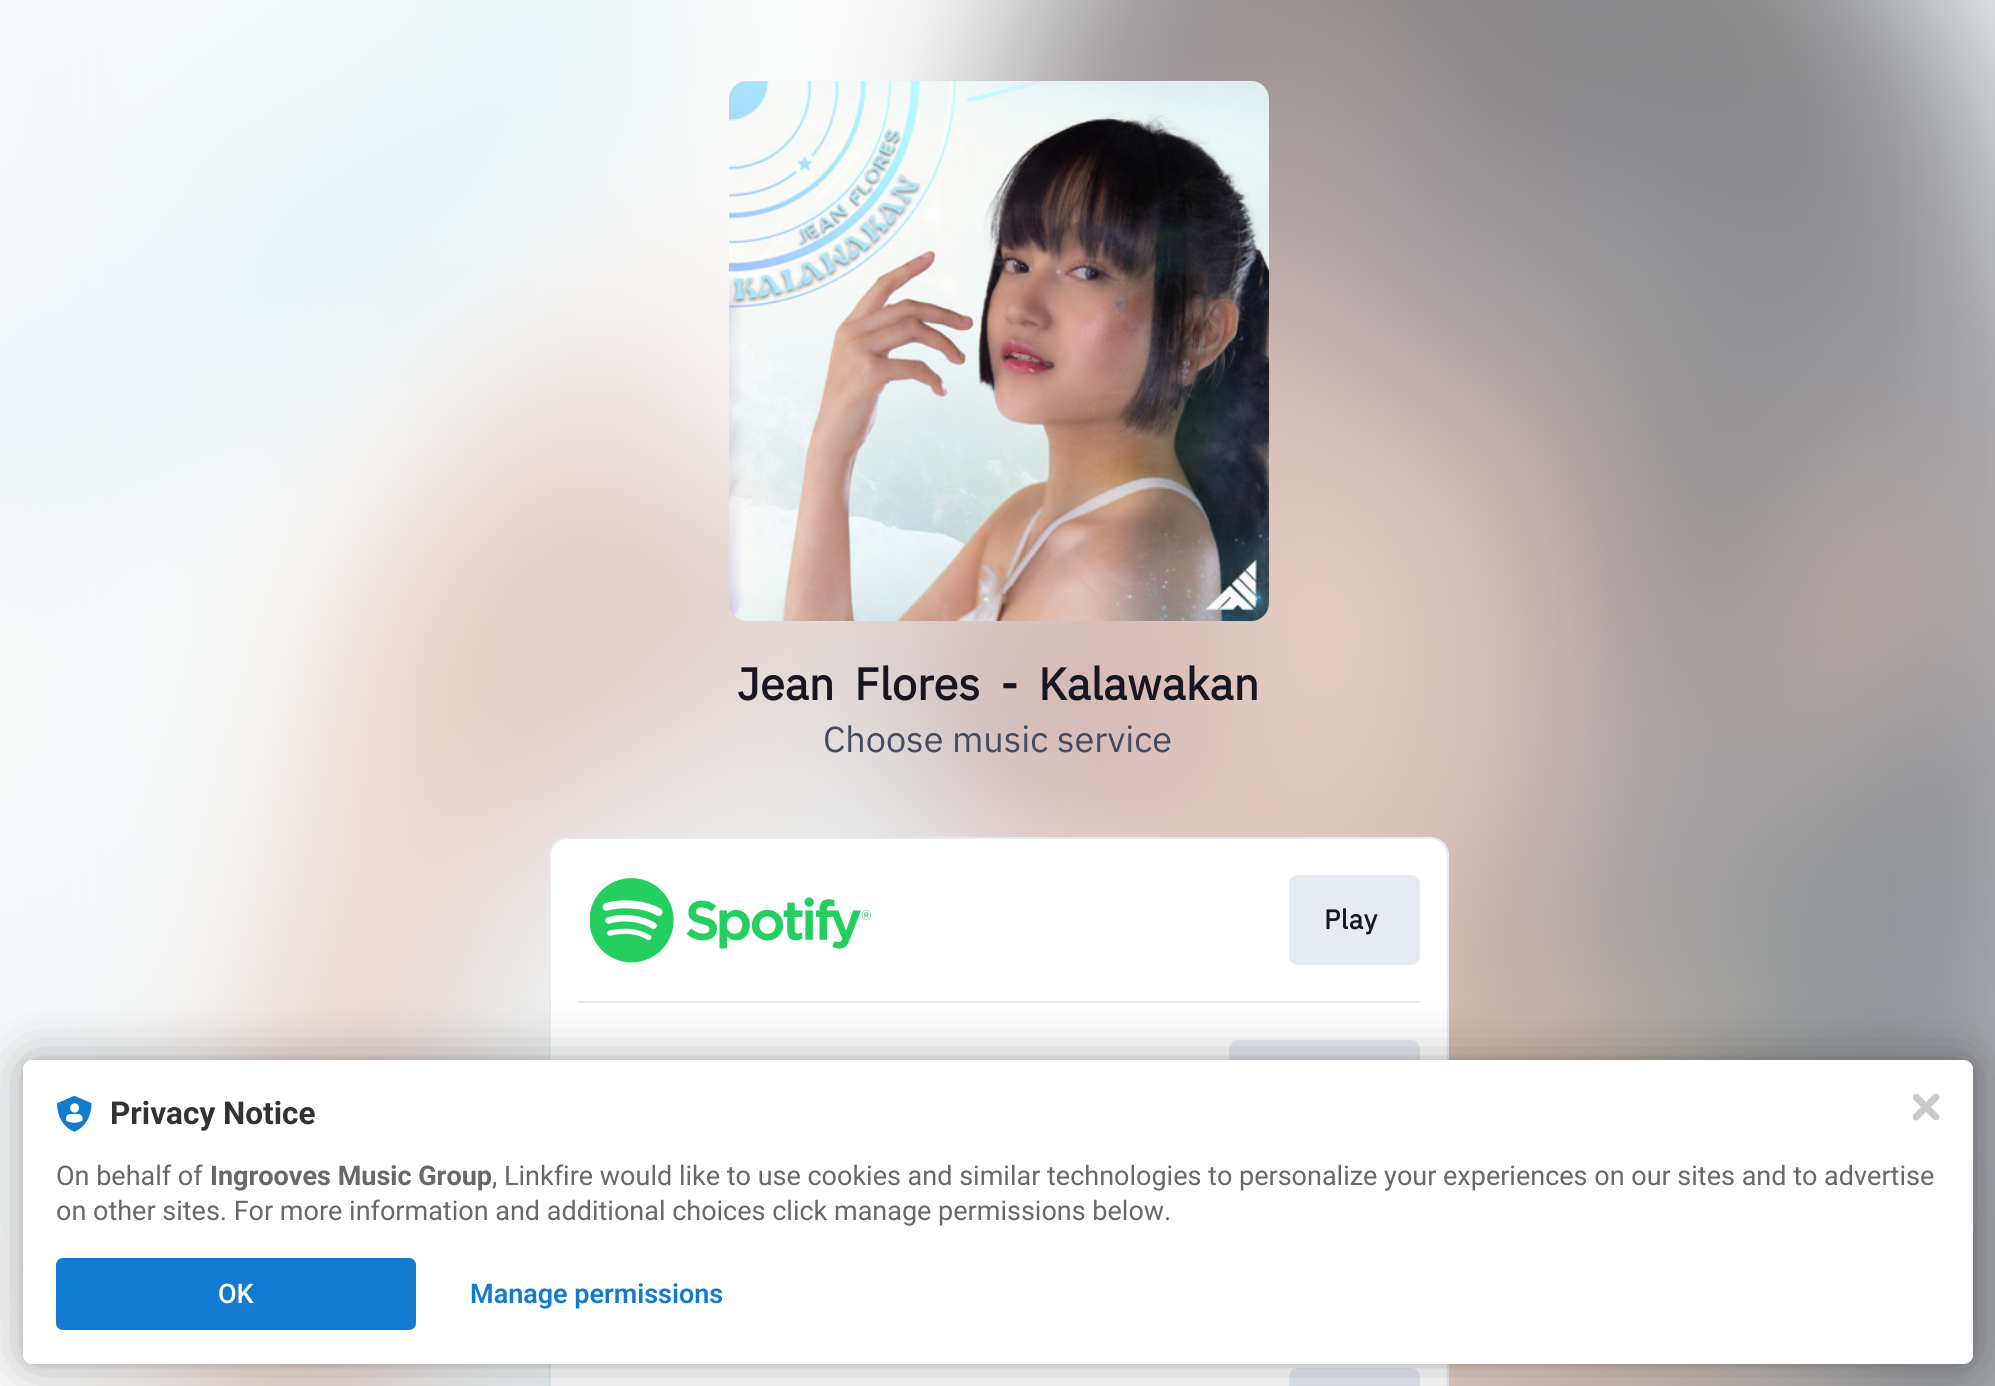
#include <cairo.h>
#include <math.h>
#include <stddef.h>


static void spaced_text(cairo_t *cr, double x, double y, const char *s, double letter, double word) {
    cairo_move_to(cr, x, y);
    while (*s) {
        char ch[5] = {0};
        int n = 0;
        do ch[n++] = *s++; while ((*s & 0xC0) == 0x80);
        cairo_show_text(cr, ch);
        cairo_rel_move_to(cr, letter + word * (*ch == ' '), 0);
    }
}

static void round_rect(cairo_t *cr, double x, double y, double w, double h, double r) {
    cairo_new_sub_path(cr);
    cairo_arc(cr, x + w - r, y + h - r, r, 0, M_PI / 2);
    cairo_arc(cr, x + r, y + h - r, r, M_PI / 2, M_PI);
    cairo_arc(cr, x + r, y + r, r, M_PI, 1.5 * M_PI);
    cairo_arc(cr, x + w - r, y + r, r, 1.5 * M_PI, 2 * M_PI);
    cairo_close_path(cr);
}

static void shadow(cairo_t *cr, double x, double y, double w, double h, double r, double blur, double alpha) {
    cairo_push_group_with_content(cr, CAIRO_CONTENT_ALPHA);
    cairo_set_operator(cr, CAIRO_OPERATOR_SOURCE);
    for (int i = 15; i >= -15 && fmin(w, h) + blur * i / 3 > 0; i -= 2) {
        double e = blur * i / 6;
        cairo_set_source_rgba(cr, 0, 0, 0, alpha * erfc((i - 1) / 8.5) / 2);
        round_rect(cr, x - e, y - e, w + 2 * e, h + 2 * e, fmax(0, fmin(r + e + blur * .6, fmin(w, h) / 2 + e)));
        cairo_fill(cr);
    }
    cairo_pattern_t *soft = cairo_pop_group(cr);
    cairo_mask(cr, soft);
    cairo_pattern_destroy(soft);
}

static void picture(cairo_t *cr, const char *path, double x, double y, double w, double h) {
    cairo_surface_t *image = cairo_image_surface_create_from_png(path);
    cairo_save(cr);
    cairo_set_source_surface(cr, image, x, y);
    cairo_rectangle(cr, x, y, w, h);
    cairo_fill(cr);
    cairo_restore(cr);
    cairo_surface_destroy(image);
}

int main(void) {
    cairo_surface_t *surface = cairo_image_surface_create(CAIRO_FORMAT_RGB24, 1995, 1386);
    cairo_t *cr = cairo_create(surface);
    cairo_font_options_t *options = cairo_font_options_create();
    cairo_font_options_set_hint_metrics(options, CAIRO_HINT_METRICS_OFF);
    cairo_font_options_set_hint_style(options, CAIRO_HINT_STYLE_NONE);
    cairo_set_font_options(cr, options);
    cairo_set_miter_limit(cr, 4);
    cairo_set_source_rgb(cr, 1, 1, 1);
    cairo_paint(cr);
    picture(cr, "img1.png", 0, 0, 1995, 1386);
    picture(cr, "img2.png", 729, 81, 540, 540);
    cairo_select_font_face(cr, "IBM Plex Sans", CAIRO_FONT_SLANT_NORMAL, CAIRO_FONT_WEIGHT_BOLD);
    cairo_set_font_size(cr, 45);
    cairo_set_source_rgb(cr, 0.094, 0.09, 0.129);
    spaced_text(cr, 737, 700, "Jean Flores - Kalawakan", 0, 9.5);
    cairo_select_font_face(cr, "IBM Plex Sans", CAIRO_FONT_SLANT_NORMAL, CAIRO_FONT_WEIGHT_NORMAL);
    cairo_set_font_size(cr, 36);
    cairo_set_source_rgb(cr, 0.271, 0.294, 0.373);
    cairo_move_to(cr, 823, 752);
    cairo_show_text(cr, "Choose music service");
    round_rect(cr, 550, 838, 898, 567, 17);
    cairo_set_source_rgb(cr, 0.902, 0.918, 0.949);
    cairo_stroke(cr);
    cairo_set_source_rgb(cr, 1, 1, 1);
    round_rect(cr, 551, 839, 896, 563, 16);
    cairo_fill(cr);
    picture(cr, "img3.png", 590, 878, 281, 85);
    cairo_set_source_rgb(cr, 0.902, 0.918, 0.949);
    round_rect(cr, 1289, 875, 131, 90, 9);
    cairo_fill(cr);
    cairo_select_font_face(cr, "IBM Plex Sans", CAIRO_FONT_SLANT_NORMAL, CAIRO_FONT_WEIGHT_BOLD);
    cairo_set_font_size(cr, 27);
    cairo_set_source_rgb(cr, 0.094, 0.09, 0.129);
    spaced_text(cr, 1324, 929, "Play", 0.5, 0);
    cairo_set_source_rgb(cr, 0.902, 0.918, 0.949);
    cairo_rectangle(cr, 578, 1001, 842, 2);
    cairo_fill(cr);
    round_rect(cr, 1229, 1040, 191, 90, 9);
    cairo_fill(cr);
    round_rect(cr, 1289, 1368, 131, 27, 9);
    cairo_fill(cr);
    cairo_set_source_rgb(cr, 0, 0, 0);
    shadow(cr, 23, 1060, 1950, 304, 9, 4.5, 0.12);
    shadow(cr, 23, 1060, 1950, 304, 9, 27, 0.3);
    cairo_set_source_rgb(cr, 1, 1, 1);
    round_rect(cr, 23, 1060, 1950, 304, 9);
    cairo_fill(cr);
    picture(cr, "img4.png", 1913, 1094, 27, 27);
    picture(cr, "img5.png", 57, 1096, 35, 36);
    cairo_select_font_face(cr, "Roboto", CAIRO_FONT_SLANT_NORMAL, CAIRO_FONT_WEIGHT_BOLD);
    cairo_set_font_size(cr, 31.5);
    cairo_set_source_rgb(cr, 0.196, 0.196, 0.196);
    cairo_move_to(cr, 110, 1124);
    cairo_show_text(cr, "Privacy Notice");
    cairo_select_font_face(cr, "Roboto", CAIRO_FONT_SLANT_NORMAL, CAIRO_FONT_WEIGHT_NORMAL);
    cairo_set_font_size(cr, 27);
    cairo_set_source_rgb(cr, 0.408, 0.408, 0.408);
    cairo_move_to(cr, 56, 1185);
    cairo_show_text(cr, "On behalf of");
    cairo_select_font_face(cr, "Roboto", CAIRO_FONT_SLANT_NORMAL, CAIRO_FONT_WEIGHT_BOLD);
    cairo_move_to(cr, 210, 1185);
    cairo_show_text(cr, "Ingrooves Music Group");
    cairo_select_font_face(cr, "Roboto", CAIRO_FONT_SLANT_NORMAL, CAIRO_FONT_WEIGHT_NORMAL);
    cairo_move_to(cr, 492, 1185);
    cairo_show_text(cr, ", Linkfire would like to use cookies and similar technologies to personalize your experiences on our sites and to advertise");
    cairo_move_to(cr, 56, 1220);
    cairo_show_text(cr, "on other sites. For more information and additional choices click manage permissions below.");
    cairo_set_source_rgb(cr, 0.075, 0.482, 0.812);
    round_rect(cr, 56, 1258, 360, 72, 7);
    cairo_fill(cr);
    cairo_select_font_face(cr, "Roboto Medium", CAIRO_FONT_SLANT_NORMAL, CAIRO_FONT_WEIGHT_NORMAL);
    cairo_set_source_rgb(cr, 1, 1, 1);
    cairo_move_to(cr, 218, 1303);
    cairo_show_text(cr, "OK");
    cairo_select_font_face(cr, "Roboto SemiBold", CAIRO_FONT_SLANT_NORMAL, CAIRO_FONT_WEIGHT_NORMAL);
    cairo_set_source_rgb(cr, 0.075, 0.482, 0.812);
    cairo_move_to(cr, 470, 1303);
    cairo_show_text(cr, "Manage permissions");
    cairo_surface_write_to_png(surface, "page.png");
    cairo_font_options_destroy(options);
    cairo_destroy(cr);
    cairo_surface_destroy(surface);
    return 0;
}
